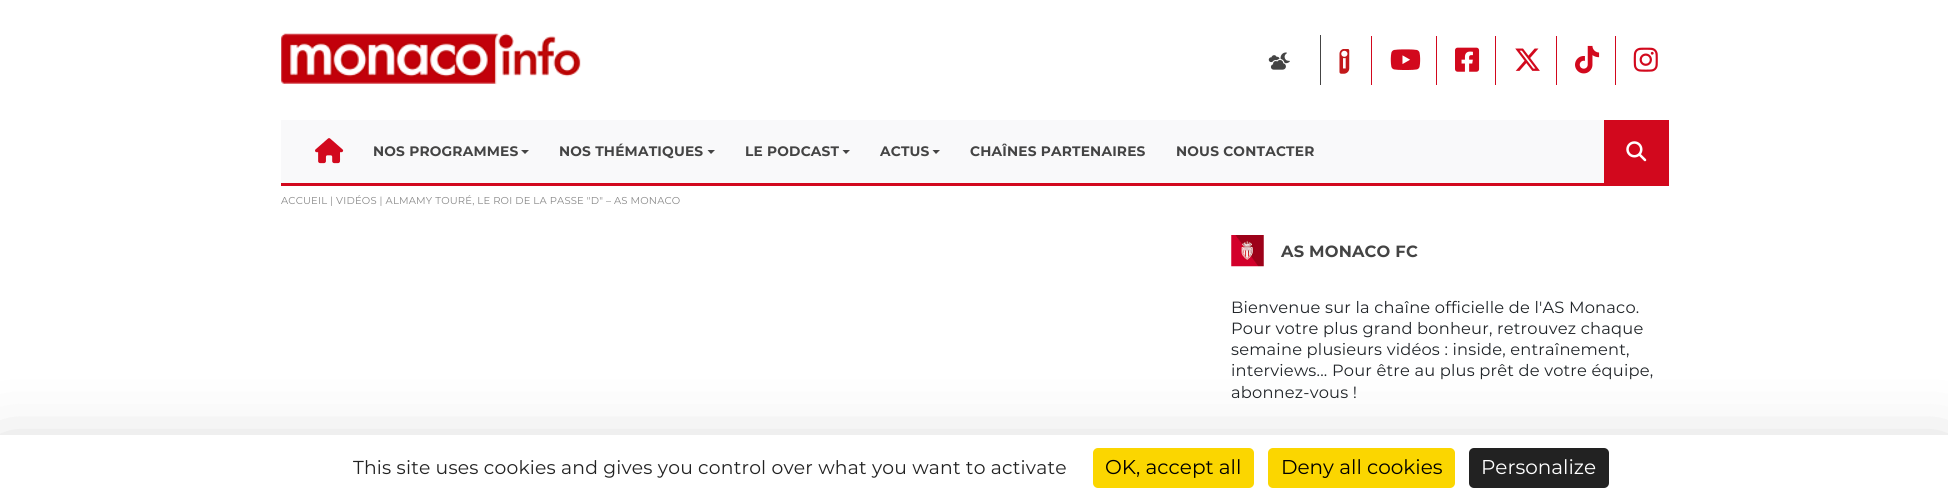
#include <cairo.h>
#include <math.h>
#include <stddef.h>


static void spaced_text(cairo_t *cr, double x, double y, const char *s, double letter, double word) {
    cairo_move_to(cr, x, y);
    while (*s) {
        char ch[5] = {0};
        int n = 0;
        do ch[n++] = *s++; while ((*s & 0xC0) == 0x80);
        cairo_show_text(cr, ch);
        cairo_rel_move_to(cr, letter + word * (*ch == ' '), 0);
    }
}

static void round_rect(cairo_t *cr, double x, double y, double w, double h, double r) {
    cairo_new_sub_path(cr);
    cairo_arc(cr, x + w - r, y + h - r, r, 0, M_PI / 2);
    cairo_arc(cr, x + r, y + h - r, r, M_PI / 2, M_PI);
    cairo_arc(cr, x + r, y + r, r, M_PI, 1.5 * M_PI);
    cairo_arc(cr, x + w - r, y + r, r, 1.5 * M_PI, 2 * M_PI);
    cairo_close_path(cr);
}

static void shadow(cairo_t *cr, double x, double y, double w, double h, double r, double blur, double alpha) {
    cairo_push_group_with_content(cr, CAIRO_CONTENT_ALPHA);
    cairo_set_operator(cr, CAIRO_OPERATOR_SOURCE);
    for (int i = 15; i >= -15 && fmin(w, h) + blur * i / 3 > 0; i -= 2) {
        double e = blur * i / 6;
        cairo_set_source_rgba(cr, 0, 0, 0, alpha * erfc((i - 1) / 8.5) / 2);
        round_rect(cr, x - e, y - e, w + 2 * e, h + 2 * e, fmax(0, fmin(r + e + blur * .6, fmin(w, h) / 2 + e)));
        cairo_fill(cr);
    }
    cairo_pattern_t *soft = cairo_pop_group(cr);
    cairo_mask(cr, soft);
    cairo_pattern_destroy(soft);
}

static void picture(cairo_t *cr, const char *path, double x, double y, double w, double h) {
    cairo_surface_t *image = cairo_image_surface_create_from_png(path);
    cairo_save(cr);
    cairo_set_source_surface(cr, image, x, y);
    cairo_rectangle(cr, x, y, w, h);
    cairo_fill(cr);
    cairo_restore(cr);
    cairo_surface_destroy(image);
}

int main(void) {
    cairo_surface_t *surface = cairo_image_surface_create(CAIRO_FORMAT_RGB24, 1948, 500);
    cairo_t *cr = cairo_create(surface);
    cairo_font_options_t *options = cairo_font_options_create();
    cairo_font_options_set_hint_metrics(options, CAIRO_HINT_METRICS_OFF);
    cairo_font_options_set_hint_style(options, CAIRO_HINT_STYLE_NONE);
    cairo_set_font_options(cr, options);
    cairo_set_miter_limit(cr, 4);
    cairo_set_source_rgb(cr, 1, 1, 1);
    cairo_paint(cr);
    picture(cr, "img1.png", 281, 33, 300, 52);
    picture(cr, "img2.png", 1268, 52, 22, 18);
    cairo_set_source_rgb(cr, 0.267, 0.267, 0.267);
    cairo_rectangle(cr, 1320, 35, 1, 50);
    cairo_fill(cr);
    picture(cr, "img3.png", 1339, 49, 11, 25);
    cairo_set_source_rgb(cr, 0.824, 0.035, 0.114);
    cairo_rectangle(cr, 1371, 36, 1, 49);
    cairo_fill(cr);
    picture(cr, "img4.png", 1390, 49, 31, 21);
    cairo_rectangle(cr, 1436, 36, 1, 49);
    cairo_fill(cr);
    picture(cr, "img5.png", 1455, 47, 25, 25);
    cairo_rectangle(cr, 1495, 36, 1, 49);
    cairo_fill(cr);
    picture(cr, "img6.png", 1515, 48, 25, 23);
    cairo_rectangle(cr, 1556, 36, 1, 49);
    cairo_fill(cr);
    picture(cr, "img7.png", 1575, 45, 25, 29);
    cairo_rectangle(cr, 1615, 36, 1, 49);
    cairo_fill(cr);
    picture(cr, "img8.png", 1633, 47, 25, 25);
    cairo_rectangle(cr, 281, 183, 1388, 3);
    cairo_fill(cr);
    cairo_set_source_rgb(cr, 0.973, 0.976, 0.98);
    cairo_rectangle(cr, 281, 120, 1323, 63);
    cairo_fill(cr);
    picture(cr, "img9.png", 315, 138, 29, 26);
    cairo_select_font_face(cr, "Montserrat", CAIRO_FONT_SLANT_NORMAL, CAIRO_FONT_WEIGHT_BOLD);
    cairo_set_font_size(cr, 13.75);
    cairo_set_source_rgb(cr, 0.267, 0.267, 0.267);
    spaced_text(cr, 373, 156, "NOS PROGRAMMES", 0.2, 0);
    cairo_new_path(cr);
    cairo_move_to(cr, 521, 150);
    cairo_line_to(cr, 529, 150);
    cairo_line_to(cr, 525, 154);
    cairo_close_path(cr);
    cairo_fill(cr);
    spaced_text(cr, 559, 156, "NOS THÉMATIQUES", 0.2, 0);
    cairo_new_path(cr);
    cairo_move_to(cr, 707.5, 150);
    cairo_line_to(cr, 715, 150);
    cairo_line_to(cr, 711, 154);
    cairo_close_path(cr);
    cairo_fill(cr);
    spaced_text(cr, 745, 156, "LE PODCAST", 0.2, 0);
    cairo_new_path(cr);
    cairo_move_to(cr, 842.5, 150);
    cairo_line_to(cr, 850, 150);
    cairo_line_to(cr, 846, 154);
    cairo_close_path(cr);
    cairo_fill(cr);
    spaced_text(cr, 880, 156, "ACTUS", 0.2, 0);
    cairo_new_path(cr);
    cairo_move_to(cr, 932.5, 150);
    cairo_line_to(cr, 940, 150);
    cairo_line_to(cr, 936, 154);
    cairo_close_path(cr);
    cairo_fill(cr);
    spaced_text(cr, 970, 156, "CHAÎNES PARTENAIRES", 0.2, 0);
    spaced_text(cr, 1176, 156, "NOUS CONTACTER", 0.2, 0);
    cairo_set_source_rgb(cr, 0.824, 0.035, 0.114);
    cairo_rectangle(cr, 1604, 120, 65, 63);
    cairo_fill(cr);
    picture(cr, "img10.png", 1626, 141, 21, 21);
    cairo_select_font_face(cr, "Montserrat", CAIRO_FONT_SLANT_NORMAL, CAIRO_FONT_WEIGHT_NORMAL);
    cairo_set_font_size(cr, 10);
    cairo_set_source_rgb(cr, 0.533, 0.533, 0.533);
    spaced_text(cr, 281, 204, "ACCUEIL | VIDÉOS | ALMAMY TOURÉ, LE ROI DE LA PASSE \"D\" – AS MONACO", 0.2, 0);
    picture(cr, "img11.png", 1231, 235, 33, 32);
    cairo_select_font_face(cr, "Montserrat", CAIRO_FONT_SLANT_NORMAL, CAIRO_FONT_WEIGHT_BOLD);
    cairo_set_font_size(cr, 16.25);
    cairo_set_source_rgb(cr, 0.267, 0.267, 0.267);
    spaced_text(cr, 1281, 257, "AS MONACO FC", 0.2, 0);
    cairo_select_font_face(cr, "Montserrat", CAIRO_FONT_SLANT_NORMAL, CAIRO_FONT_WEIGHT_NORMAL);
    cairo_set_source_rgb(cr, 0.129, 0.145, 0.161);
    spaced_text(cr, 1231, 313, "Bienvenue sur la chaîne officielle de l'AS Monaco.", 0.2, 0);
    spaced_text(cr, 1231, 334, "Pour votre plus grand bonheur, retrouvez chaque", 0.2, 0);
    spaced_text(cr, 1231, 355, "semaine plusieurs vidéos : inside, entraînement,", 0.2, 0);
    spaced_text(cr, 1231, 376, "interviews... Pour être au plus prêt de votre équipe,", 0.2, 0);
    spaced_text(cr, 1231, 398, "abonnez-vous !", 0.2, 0);
    cairo_set_source_rgb(cr, 0, 0, 0);
    shadow(cr, 0, 460, 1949, 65, 0, 37.5, 0.25);
    cairo_set_source_rgb(cr, 1, 1, 1);
    cairo_rectangle(cr, 0, 435, 1948, 65);
    cairo_fill(cr);
    cairo_set_font_size(cr, 18.75);
    cairo_set_source_rgb(cr, 0.133, 0.133, 0.133);
    spaced_text(cr, 353, 474, "This site uses cookies and gives you control over what you want to activate", 0.2, 0);
    cairo_set_source_rgb(cr, 0.984, 0.839, 0);
    round_rect(cr, 1093, 448, 161, 40, 5);
    cairo_fill(cr);
    cairo_set_font_size(cr, 20);
    cairo_set_source_rgb(cr, 0, 0, 0);
    cairo_move_to(cr, 1105, 474);
    cairo_show_text(cr, "OK, accept all");
    cairo_set_source_rgb(cr, 0.984, 0.839, 0);
    round_rect(cr, 1268, 448, 187, 40, 5);
    cairo_fill(cr);
    cairo_set_source_rgb(cr, 0, 0, 0);
    cairo_move_to(cr, 1281, 474);
    cairo_show_text(cr, "Deny all cookies");
    cairo_set_source_rgb(cr, 0.133, 0.133, 0.133);
    round_rect(cr, 1469, 448, 140, 40, 5);
    cairo_fill(cr);
    cairo_set_source_rgb(cr, 1, 1, 1);
    cairo_move_to(cr, 1481, 474);
    cairo_show_text(cr, "Personalize");
    cairo_surface_write_to_png(surface, "page.png");
    cairo_font_options_destroy(options);
    cairo_destroy(cr);
    cairo_surface_destroy(surface);
    return 0;
}
